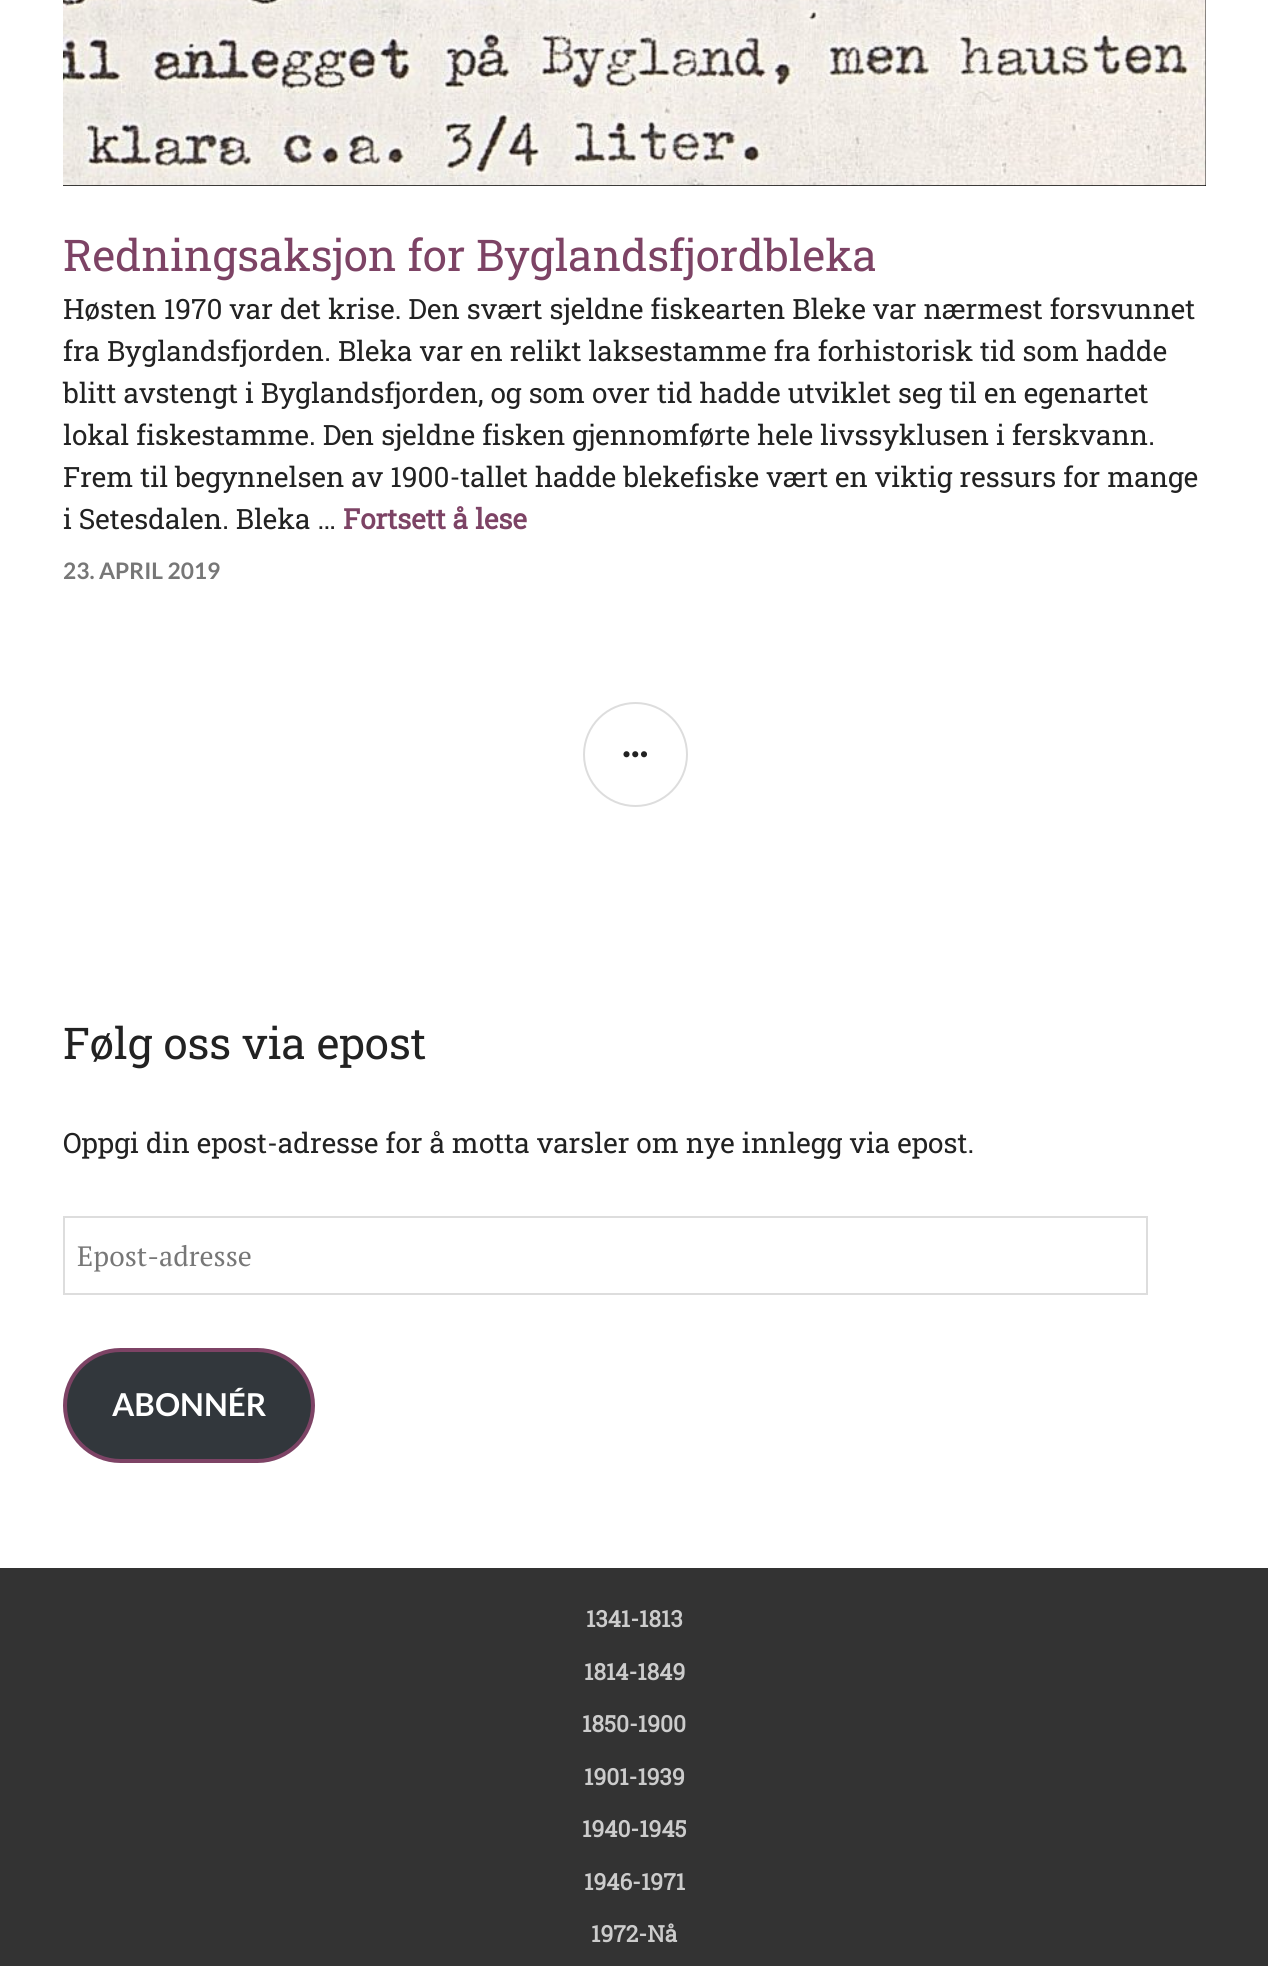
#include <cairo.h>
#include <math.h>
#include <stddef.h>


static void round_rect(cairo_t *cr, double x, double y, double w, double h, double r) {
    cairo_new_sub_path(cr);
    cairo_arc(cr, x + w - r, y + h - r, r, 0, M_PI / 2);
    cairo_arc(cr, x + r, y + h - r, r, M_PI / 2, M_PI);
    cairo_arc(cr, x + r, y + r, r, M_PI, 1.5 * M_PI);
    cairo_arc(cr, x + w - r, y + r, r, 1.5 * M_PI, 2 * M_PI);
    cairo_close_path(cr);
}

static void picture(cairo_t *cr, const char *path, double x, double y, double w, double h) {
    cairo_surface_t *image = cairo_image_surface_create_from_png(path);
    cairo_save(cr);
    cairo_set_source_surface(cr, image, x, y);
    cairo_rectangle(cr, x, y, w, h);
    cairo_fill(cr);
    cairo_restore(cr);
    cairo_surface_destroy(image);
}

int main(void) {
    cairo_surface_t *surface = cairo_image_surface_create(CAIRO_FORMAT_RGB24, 1268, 1966);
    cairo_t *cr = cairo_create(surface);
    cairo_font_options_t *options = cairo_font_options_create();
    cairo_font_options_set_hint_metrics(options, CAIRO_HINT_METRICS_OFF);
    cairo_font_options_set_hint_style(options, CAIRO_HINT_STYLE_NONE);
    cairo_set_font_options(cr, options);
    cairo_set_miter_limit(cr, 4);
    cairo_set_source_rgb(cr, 1, 1, 1);
    cairo_paint(cr);
    cairo_set_source_rgb(cr, 0, 0, 0);
    cairo_rectangle(cr, 63, 0, 1143, 186);
    cairo_fill(cr);
    picture(cr, "img1.png", 63, 0, 1143, 186);
    cairo_select_font_face(cr, "Roboto Slab", CAIRO_FONT_SLANT_NORMAL, CAIRO_FONT_WEIGHT_NORMAL);
    cairo_set_font_size(cr, 43.75);
    cairo_set_source_rgb(cr, 0.49, 0.263, 0.396);
    cairo_move_to(cr, 63, 271);
    cairo_show_text(cr, "Redningsaksjon for Byglandsfjordbleka");
    cairo_set_font_size(cr, 28);
    cairo_set_source_rgb(cr, 0.133, 0.133, 0.133);
    cairo_move_to(cr, 63, 319);
    cairo_show_text(cr, "Høsten 1970 var det krise. Den svært sjeldne fiskearten Bleke var nærmest forsvunnet");
    cairo_move_to(cr, 63, 361);
    cairo_show_text(cr, "fra Byglandsfjorden. Bleka var en relikt laksestamme fra forhistorisk tid som hadde");
    cairo_move_to(cr, 63, 403);
    cairo_show_text(cr, "blitt avstengt i Byglandsfjorden, og som over tid hadde utviklet seg til en egenartet");
    cairo_move_to(cr, 63, 445);
    cairo_show_text(cr, "lokal fiskestamme. Den sjeldne fisken gjennomførte hele livssyklusen i ferskvann.");
    cairo_move_to(cr, 63, 487);
    cairo_show_text(cr, "Frem til begynnelsen av 1900-tallet hadde blekefiske vært en viktig ressurs for mange");
    cairo_move_to(cr, 63, 529);
    cairo_show_text(cr, "i Setesdalen. Bleka …");
    cairo_select_font_face(cr, "Roboto Slab", CAIRO_FONT_SLANT_NORMAL, CAIRO_FONT_WEIGHT_BOLD);
    cairo_set_source_rgb(cr, 0.49, 0.263, 0.396);
    cairo_move_to(cr, 343, 529);
    cairo_show_text(cr, "Fortsett å lese");
    cairo_select_font_face(cr, "Lato", CAIRO_FONT_SLANT_NORMAL, CAIRO_FONT_WEIGHT_BOLD);
    cairo_set_font_size(cr, 22.75);
    cairo_set_source_rgb(cr, 0.467, 0.467, 0.467);
    cairo_move_to(cr, 63, 579);
    cairo_show_text(cr, "23. APRIL 2019");
    cairo_new_path(cr);
    cairo_arc(cr, 635.5, 754.5, 51.5, 0, 2 * M_PI);
    cairo_set_source_rgb(cr, 0.867, 0.867, 0.867);
    cairo_stroke(cr);
    picture(cr, "img2.png", 623, 751, 24, 7);
    cairo_select_font_face(cr, "Roboto Slab", CAIRO_FONT_SLANT_NORMAL, CAIRO_FONT_WEIGHT_NORMAL);
    cairo_set_font_size(cr, 43.75);
    cairo_set_source_rgb(cr, 0.133, 0.133, 0.133);
    cairo_move_to(cr, 63, 1059);
    cairo_show_text(cr, "Følg oss via epost");
    cairo_set_font_size(cr, 28);
    cairo_move_to(cr, 63, 1153);
    cairo_show_text(cr, "Oppgi din epost-adresse for å motta varsler om nye innlegg via epost.");
    cairo_rectangle(cr, 64, 1217, 1083, 77);
    cairo_set_source_rgb(cr, 0.867, 0.867, 0.867);
    cairo_stroke(cr);
    cairo_select_font_face(cr, "PT Serif", CAIRO_FONT_SLANT_NORMAL, CAIRO_FONT_WEIGHT_NORMAL);
    cairo_set_source_rgb(cr, 0.467, 0.467, 0.467);
    cairo_move_to(cr, 77, 1266);
    cairo_show_text(cr, "Epost-adresse");
    cairo_set_source_rgb(cr, 0.196, 0.216, 0.235);
    round_rect(cr, 65, 1350, 248, 111, 55.5);
    cairo_fill_preserve(cr);
    cairo_set_source_rgb(cr, 0.49, 0.263, 0.396);
    cairo_set_line_width(cr, 4);
    cairo_stroke(cr);
    cairo_select_font_face(cr, "Lato", CAIRO_FONT_SLANT_NORMAL, CAIRO_FONT_WEIGHT_BOLD);
    cairo_set_font_size(cr, 31.5);
    cairo_set_source_rgb(cr, 1, 1, 1);
    cairo_move_to(cr, 112, 1416);
    cairo_show_text(cr, "ABONNÉR");
    cairo_set_source_rgb(cr, 0.2, 0.2, 0.2);
    cairo_rectangle(cr, 0, 1568, 1268, 398);
    cairo_fill(cr);
    cairo_select_font_face(cr, "Roboto Slab", CAIRO_FONT_SLANT_NORMAL, CAIRO_FONT_WEIGHT_BOLD);
    cairo_set_font_size(cr, 22.75);
    cairo_set_source_rgb(cr, 0.8, 0.8, 0.8);
    cairo_move_to(cr, 586, 1627);
    cairo_show_text(cr, "1341-1813");
    cairo_move_to(cr, 584, 1680);
    cairo_show_text(cr, "1814-1849");
    cairo_move_to(cr, 582, 1732);
    cairo_show_text(cr, "1850-1900");
    cairo_move_to(cr, 584, 1785);
    cairo_show_text(cr, "1901-1939");
    cairo_move_to(cr, 582, 1837);
    cairo_show_text(cr, "1940-1945");
    cairo_move_to(cr, 584, 1890);
    cairo_show_text(cr, "1946-1971");
    cairo_move_to(cr, 591, 1942);
    cairo_show_text(cr, "1972-Nå");
    cairo_surface_write_to_png(surface, "page.png");
    cairo_font_options_destroy(options);
    cairo_destroy(cr);
    cairo_surface_destroy(surface);
    return 0;
}
